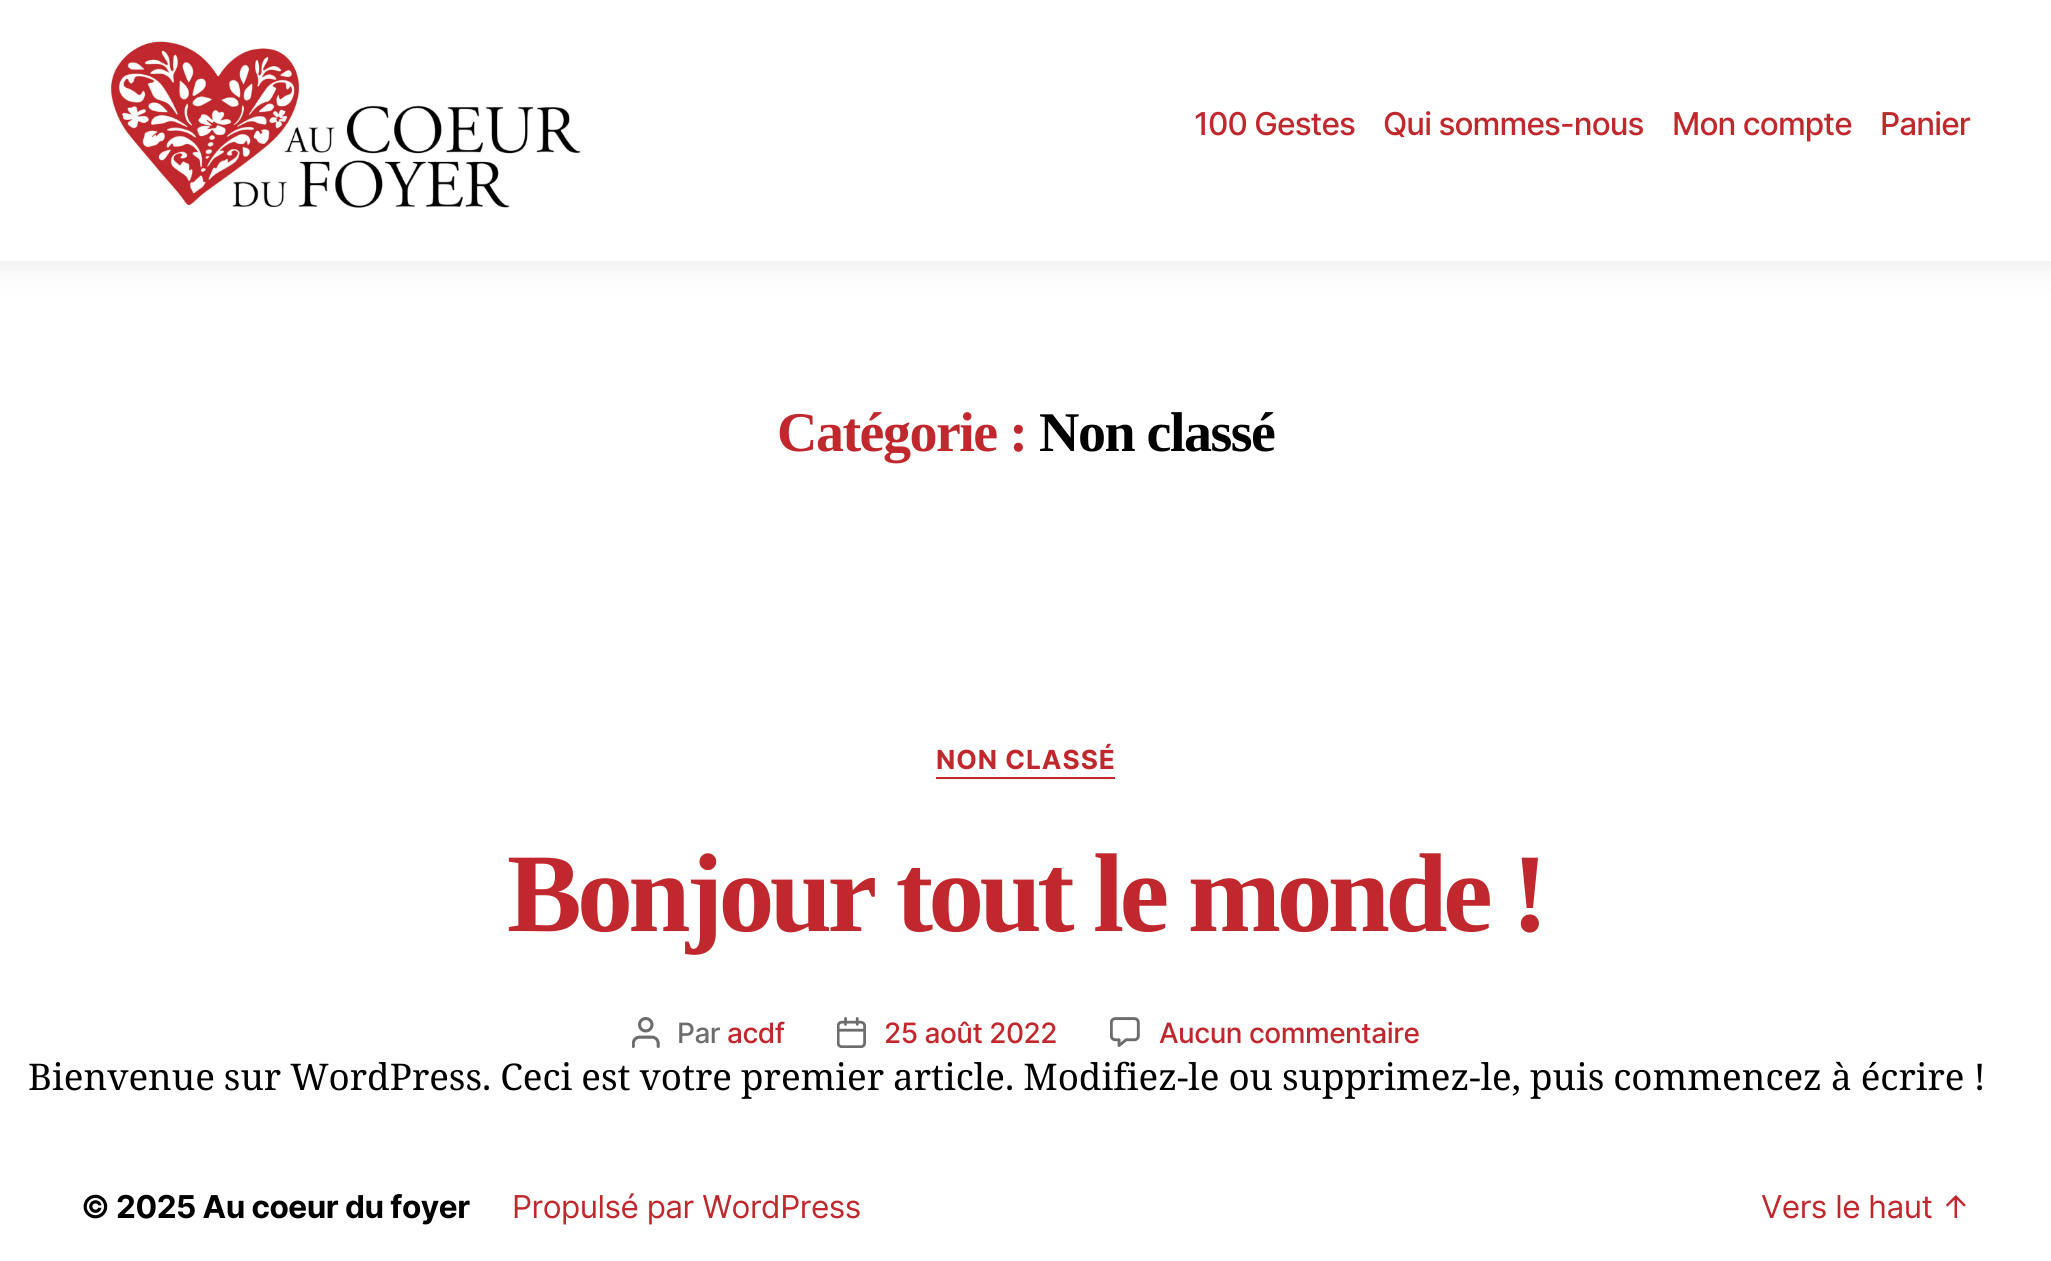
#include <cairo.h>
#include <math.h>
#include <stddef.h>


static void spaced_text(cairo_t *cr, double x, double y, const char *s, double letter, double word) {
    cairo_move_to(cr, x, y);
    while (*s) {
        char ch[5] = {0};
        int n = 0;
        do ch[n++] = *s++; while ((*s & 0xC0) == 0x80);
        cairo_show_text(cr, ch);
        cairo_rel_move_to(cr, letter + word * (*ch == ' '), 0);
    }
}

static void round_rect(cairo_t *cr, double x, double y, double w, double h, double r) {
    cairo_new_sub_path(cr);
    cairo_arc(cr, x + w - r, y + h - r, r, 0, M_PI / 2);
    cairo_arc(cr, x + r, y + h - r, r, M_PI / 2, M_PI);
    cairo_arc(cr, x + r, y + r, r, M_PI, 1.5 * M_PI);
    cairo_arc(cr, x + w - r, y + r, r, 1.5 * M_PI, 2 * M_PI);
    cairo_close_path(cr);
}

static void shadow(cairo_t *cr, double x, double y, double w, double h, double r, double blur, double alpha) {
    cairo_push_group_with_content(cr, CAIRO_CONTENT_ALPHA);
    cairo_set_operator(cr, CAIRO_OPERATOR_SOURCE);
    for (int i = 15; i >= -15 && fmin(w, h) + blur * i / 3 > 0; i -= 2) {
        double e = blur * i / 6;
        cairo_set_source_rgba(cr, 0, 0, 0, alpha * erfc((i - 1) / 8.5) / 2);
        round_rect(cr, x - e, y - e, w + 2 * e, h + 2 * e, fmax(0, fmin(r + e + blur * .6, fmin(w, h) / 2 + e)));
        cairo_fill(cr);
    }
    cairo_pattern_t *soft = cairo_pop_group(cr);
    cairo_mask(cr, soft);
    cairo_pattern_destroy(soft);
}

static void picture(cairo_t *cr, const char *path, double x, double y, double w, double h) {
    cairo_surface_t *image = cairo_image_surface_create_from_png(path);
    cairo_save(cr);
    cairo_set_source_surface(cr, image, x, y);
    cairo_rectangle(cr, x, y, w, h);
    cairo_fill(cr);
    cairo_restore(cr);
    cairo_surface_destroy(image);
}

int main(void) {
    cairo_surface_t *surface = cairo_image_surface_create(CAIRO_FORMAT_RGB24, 2051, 1261);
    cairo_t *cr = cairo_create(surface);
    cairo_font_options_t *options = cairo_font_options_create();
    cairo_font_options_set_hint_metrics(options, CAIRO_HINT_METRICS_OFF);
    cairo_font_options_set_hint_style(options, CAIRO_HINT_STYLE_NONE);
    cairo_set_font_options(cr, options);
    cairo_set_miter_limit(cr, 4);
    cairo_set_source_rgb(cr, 1, 1, 1);
    cairo_paint(cr);
    cairo_set_source_rgb(cr, 0.859, 0.859, 0.859);
    shadow(cr, -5, -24, 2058, 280, 0, 17.5, 1);
    cairo_set_source_rgb(cr, 1, 1, 1);
    cairo_rectangle(cr, 0, 0, 2051, 261);
    cairo_fill(cr);
    picture(cr, "img1.png", 110, 41, 471, 167);
    cairo_select_font_face(cr, "Inter Medium", CAIRO_FONT_SLANT_NORMAL, CAIRO_FONT_WEIGHT_NORMAL);
    cairo_set_font_size(cr, 31.5);
    cairo_set_source_rgb(cr, 0.757, 0.157, 0.176);
    spaced_text(cr, 1194, 135, "100 Gestes", -0.9, 0);
    spaced_text(cr, 1383, 135, "Qui sommes-nous", -0.9, 0);
    spaced_text(cr, 1672, 135, "Mon compte", -0.9, 0);
    spaced_text(cr, 1880, 135, "Panier", -0.9, 0);
    cairo_select_font_face(cr, "Liberation Serif", CAIRO_FONT_SLANT_NORMAL, CAIRO_FONT_WEIGHT_BOLD);
    cairo_set_font_size(cr, 56);
    spaced_text(cr, 777, 451, "Catégorie :", -1.5, 0);
    cairo_set_source_rgb(cr, 0, 0, 0);
    spaced_text(cr, 1039, 451, "Non classé", -1.5, 0);
    cairo_set_source_rgb(cr, 0.757, 0.157, 0.176);
    cairo_rectangle(cr, 936, 777, 179, 2);
    cairo_fill(cr);
    cairo_select_font_face(cr, "Inter", CAIRO_FONT_SLANT_NORMAL, CAIRO_FONT_WEIGHT_BOLD);
    cairo_set_font_size(cr, 26.25);
    spaced_text(cr, 936, 769, "NON CLASSÉ", 1, 0);
    cairo_select_font_face(cr, "Liberation Serif", CAIRO_FONT_SLANT_NORMAL, CAIRO_FONT_WEIGHT_BOLD);
    cairo_set_font_size(cr, 112);
    spaced_text(cr, 507, 931, "Bonjour tout le monde !", -4.7, 0);
    picture(cr, "img2.png", 632, 1017, 28, 31);
    cairo_select_font_face(cr, "Inter Medium", CAIRO_FONT_SLANT_NORMAL, CAIRO_FONT_WEIGHT_NORMAL);
    cairo_set_font_size(cr, 28);
    cairo_set_source_rgb(cr, 0.427, 0.427, 0.427);
    spaced_text(cr, 677, 1043, "Par", -0.5, 0);
    cairo_set_source_rgb(cr, 0.757, 0.157, 0.176);
    spaced_text(cr, 727, 1043, "acdf", -0.5, 0);
    picture(cr, "img3.png", 837, 1017, 29, 31);
    spaced_text(cr, 884, 1043, "25 août 2022", -0.5, 0);
    picture(cr, "img4.png", 1110, 1017, 30, 30);
    spaced_text(cr, 1159, 1043, "Aucun commentaire", -0.5, 0);
    cairo_select_font_face(cr, "Noto Serif", CAIRO_FONT_SLANT_NORMAL, CAIRO_FONT_WEIGHT_NORMAL);
    cairo_set_font_size(cr, 36.75);
    cairo_set_source_rgb(cr, 0, 0, 0);
    spaced_text(cr, 28, 1090, "Bienvenue sur WordPress. Ceci est votre premier article. Modifiez-le ou supprimez-le, puis commencez à écrire !", 0, -0.5);
    cairo_select_font_face(cr, "Inter", CAIRO_FONT_SLANT_NORMAL, CAIRO_FONT_WEIGHT_BOLD);
    cairo_set_font_size(cr, 31.5);
    spaced_text(cr, 81, 1218, "© 2025 Au coeur du foyer", -0.5, 0);
    cairo_select_font_face(cr, "Inter", CAIRO_FONT_SLANT_NORMAL, CAIRO_FONT_WEIGHT_NORMAL);
    cairo_set_source_rgb(cr, 0.757, 0.157, 0.176);
    spaced_text(cr, 512, 1218, "Propulsé par WordPress", -0.5, 0);
    spaced_text(cr, 1761, 1218, "Vers le haut ↑", -0.5, 0);
    cairo_surface_write_to_png(surface, "page.png");
    cairo_font_options_destroy(options);
    cairo_destroy(cr);
    cairo_surface_destroy(surface);
    return 0;
}
